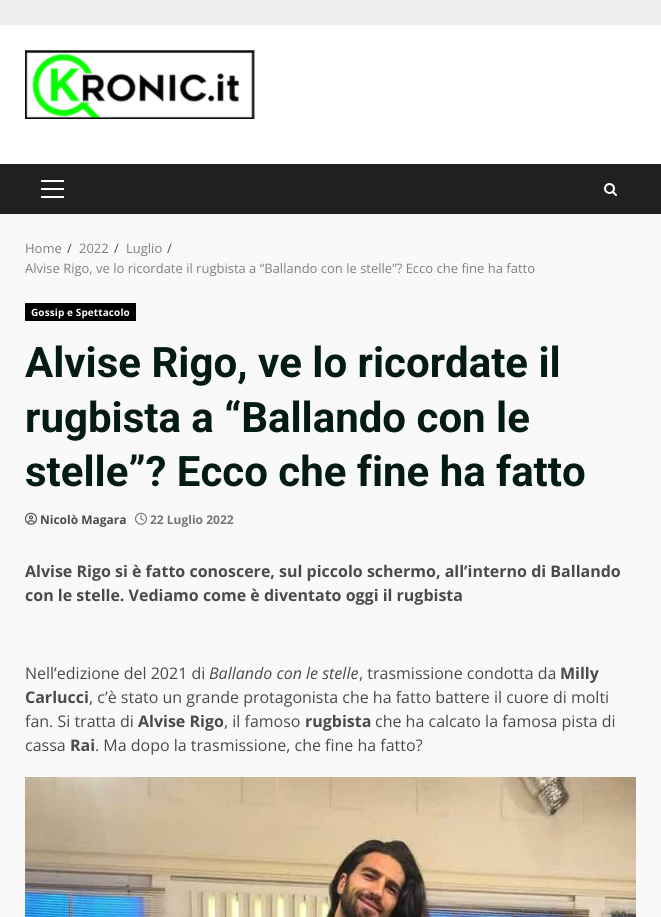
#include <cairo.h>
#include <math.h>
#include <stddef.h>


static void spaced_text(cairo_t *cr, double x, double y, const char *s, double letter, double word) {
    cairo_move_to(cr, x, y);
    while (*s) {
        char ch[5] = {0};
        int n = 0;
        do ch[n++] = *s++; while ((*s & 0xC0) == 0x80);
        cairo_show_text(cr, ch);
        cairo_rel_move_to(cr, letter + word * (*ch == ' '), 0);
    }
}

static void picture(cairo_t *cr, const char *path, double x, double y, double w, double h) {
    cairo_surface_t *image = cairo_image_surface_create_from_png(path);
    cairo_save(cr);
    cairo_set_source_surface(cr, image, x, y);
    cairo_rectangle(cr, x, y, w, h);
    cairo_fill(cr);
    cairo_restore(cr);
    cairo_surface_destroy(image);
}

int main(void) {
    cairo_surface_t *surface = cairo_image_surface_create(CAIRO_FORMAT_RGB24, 661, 917);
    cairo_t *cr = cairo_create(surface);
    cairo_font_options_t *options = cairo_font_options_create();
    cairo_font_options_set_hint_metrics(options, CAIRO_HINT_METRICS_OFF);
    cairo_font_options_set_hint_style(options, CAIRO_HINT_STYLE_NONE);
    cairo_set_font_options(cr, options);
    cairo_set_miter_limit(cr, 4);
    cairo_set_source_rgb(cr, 0.933, 0.933, 0.933);
    cairo_paint(cr);
    cairo_set_source_rgb(cr, 0.976, 0.976, 0.976);
    cairo_rectangle(cr, 0, 214, 661, 703);
    cairo_fill(cr);
    cairo_set_source_rgb(cr, 1, 1, 1);
    cairo_rectangle(cr, 0, 25, 661, 139);
    cairo_fill(cr);
    picture(cr, "img1.png", 25, 50, 230, 69);
    cairo_set_source_rgb(cr, 0.125, 0.125, 0.125);
    cairo_rectangle(cr, 0, 164, 661, 50);
    cairo_fill(cr);
    cairo_set_source_rgb(cr, 1, 1, 1);
    cairo_rectangle(cr, 41, 188, 23, 2);
    cairo_fill(cr);
    cairo_rectangle(cr, 41, 180, 23, 2);
    cairo_fill(cr);
    cairo_rectangle(cr, 41, 196, 23, 2);
    cairo_fill(cr);
    picture(cr, "img2.png", 604, 183, 13, 13);
    cairo_select_font_face(cr, "Open Sans", CAIRO_FONT_SLANT_NORMAL, CAIRO_FONT_WEIGHT_NORMAL);
    cairo_set_font_size(cr, 13);
    cairo_set_source_rgb(cr, 0.498, 0.498, 0.498);
    cairo_move_to(cr, 25, 253);
    cairo_show_text(cr, "Home");
    cairo_set_source_rgb(cr, 0.29, 0.29, 0.29);
    cairo_move_to(cr, 67, 253);
    cairo_show_text(cr, "/");
    cairo_set_source_rgb(cr, 0.498, 0.498, 0.498);
    cairo_move_to(cr, 79, 253);
    cairo_show_text(cr, "2022");
    cairo_set_source_rgb(cr, 0.29, 0.29, 0.29);
    cairo_move_to(cr, 114, 253);
    cairo_show_text(cr, "/");
    cairo_set_source_rgb(cr, 0.498, 0.498, 0.498);
    cairo_move_to(cr, 126, 253);
    cairo_show_text(cr, "Luglio");
    cairo_set_source_rgb(cr, 0.29, 0.29, 0.29);
    cairo_move_to(cr, 167, 253);
    cairo_show_text(cr, "/");
    cairo_set_source_rgb(cr, 0.498, 0.498, 0.498);
    cairo_move_to(cr, 25, 273);
    cairo_show_text(cr, "Alvise Rigo, ve lo ricordate il rugbista a “Ballando con le stelle”? Ecco che fine ha fatto");
    cairo_set_source_rgb(cr, 0, 0, 0);
    cairo_rectangle(cr, 25, 303, 111, 18);
    cairo_fill(cr);
    cairo_select_font_face(cr, "Open Sans", CAIRO_FONT_SLANT_NORMAL, CAIRO_FONT_WEIGHT_BOLD);
    cairo_set_font_size(cr, 10);
    cairo_set_source_rgb(cr, 1, 1, 1);
    spaced_text(cr, 31, 316, "Gossip e Spettacolo", 0.1, 0);
    cairo_select_font_face(cr, "Roboto", CAIRO_FONT_SLANT_NORMAL, CAIRO_FONT_WEIGHT_BOLD);
    cairo_set_font_size(cr, 42);
    cairo_set_source_rgb(cr, 0.012, 0.106, 0.067);
    cairo_move_to(cr, 25, 377);
    cairo_show_text(cr, "Alvise Rigo, ve lo ricordate il");
    cairo_move_to(cr, 25, 432);
    cairo_show_text(cr, "rugbista a “Ballando con le");
    cairo_move_to(cr, 25, 486);
    cairo_show_text(cr, "stelle”? Ecco che fine ha fatto");
    picture(cr, "img3.png", 25, 512, 12, 13);
    cairo_select_font_face(cr, "Open Sans", CAIRO_FONT_SLANT_NORMAL, CAIRO_FONT_WEIGHT_BOLD);
    cairo_set_font_size(cr, 12);
    cairo_set_source_rgb(cr, 0.29, 0.29, 0.29);
    cairo_move_to(cr, 40, 524);
    cairo_show_text(cr, "Nicolò Magara");
    picture(cr, "img4.png", 135, 512, 12, 13);
    cairo_set_source_rgb(cr, 0.463, 0.463, 0.463);
    cairo_move_to(cr, 150, 524);
    cairo_show_text(cr, "22 Luglio 2022");
    cairo_set_font_size(cr, 16);
    cairo_set_source_rgb(cr, 0.29, 0.29, 0.29);
    cairo_move_to(cr, 25, 577);
    cairo_show_text(cr, "Alvise Rigo si è fatto conoscere, sul piccolo schermo, all’interno di Ballando");
    cairo_move_to(cr, 25, 601);
    cairo_show_text(cr, "con le stelle. Vediamo come è diventato oggi il rugbista");
    cairo_select_font_face(cr, "Open Sans", CAIRO_FONT_SLANT_NORMAL, CAIRO_FONT_WEIGHT_NORMAL);
    cairo_move_to(cr, 25, 679);
    cairo_show_text(cr, "Nell’edizione del 2021 di");
    cairo_select_font_face(cr, "Open Sans", CAIRO_FONT_SLANT_ITALIC, CAIRO_FONT_WEIGHT_NORMAL);
    cairo_move_to(cr, 209, 679);
    cairo_show_text(cr, "Ballando con le stelle");
    cairo_select_font_face(cr, "Open Sans", CAIRO_FONT_SLANT_NORMAL, CAIRO_FONT_WEIGHT_NORMAL);
    cairo_move_to(cr, 359, 679);
    cairo_show_text(cr, ", trasmissione condotta da");
    cairo_select_font_face(cr, "Open Sans", CAIRO_FONT_SLANT_NORMAL, CAIRO_FONT_WEIGHT_BOLD);
    cairo_move_to(cr, 560, 679);
    cairo_show_text(cr, "Milly");
    cairo_move_to(cr, 25, 703);
    cairo_show_text(cr, "Carlucci");
    cairo_select_font_face(cr, "Open Sans", CAIRO_FONT_SLANT_NORMAL, CAIRO_FONT_WEIGHT_NORMAL);
    cairo_move_to(cr, 89, 703);
    cairo_show_text(cr, ", c’è stato un grande protagonista che ha fatto battere il cuore di molti");
    cairo_move_to(cr, 25, 727);
    cairo_show_text(cr, "fan. Si tratta di");
    cairo_select_font_face(cr, "Open Sans", CAIRO_FONT_SLANT_NORMAL, CAIRO_FONT_WEIGHT_BOLD);
    cairo_move_to(cr, 138, 727);
    cairo_show_text(cr, "Alvise Rigo");
    cairo_select_font_face(cr, "Open Sans", CAIRO_FONT_SLANT_NORMAL, CAIRO_FONT_WEIGHT_NORMAL);
    cairo_move_to(cr, 224, 727);
    cairo_show_text(cr, ", il famoso");
    cairo_select_font_face(cr, "Open Sans", CAIRO_FONT_SLANT_NORMAL, CAIRO_FONT_WEIGHT_BOLD);
    cairo_move_to(cr, 305, 727);
    cairo_show_text(cr, "rugbista");
    cairo_select_font_face(cr, "Open Sans", CAIRO_FONT_SLANT_NORMAL, CAIRO_FONT_WEIGHT_NORMAL);
    cairo_move_to(cr, 375, 727);
    cairo_show_text(cr, "che ha calcato la famosa pista di");
    cairo_move_to(cr, 25, 751);
    cairo_show_text(cr, "cassa");
    cairo_select_font_face(cr, "Open Sans", CAIRO_FONT_SLANT_NORMAL, CAIRO_FONT_WEIGHT_BOLD);
    cairo_move_to(cr, 70, 751);
    cairo_show_text(cr, "Rai");
    cairo_select_font_face(cr, "Open Sans", CAIRO_FONT_SLANT_NORMAL, CAIRO_FONT_WEIGHT_NORMAL);
    cairo_move_to(cr, 95, 751);
    cairo_show_text(cr, ". Ma dopo la trasmissione, che fine ha fatto?");
    picture(cr, "img5.png", 25, 777, 611, 140);
    cairo_surface_write_to_png(surface, "page.png");
    cairo_font_options_destroy(options);
    cairo_destroy(cr);
    cairo_surface_destroy(surface);
    return 0;
}
